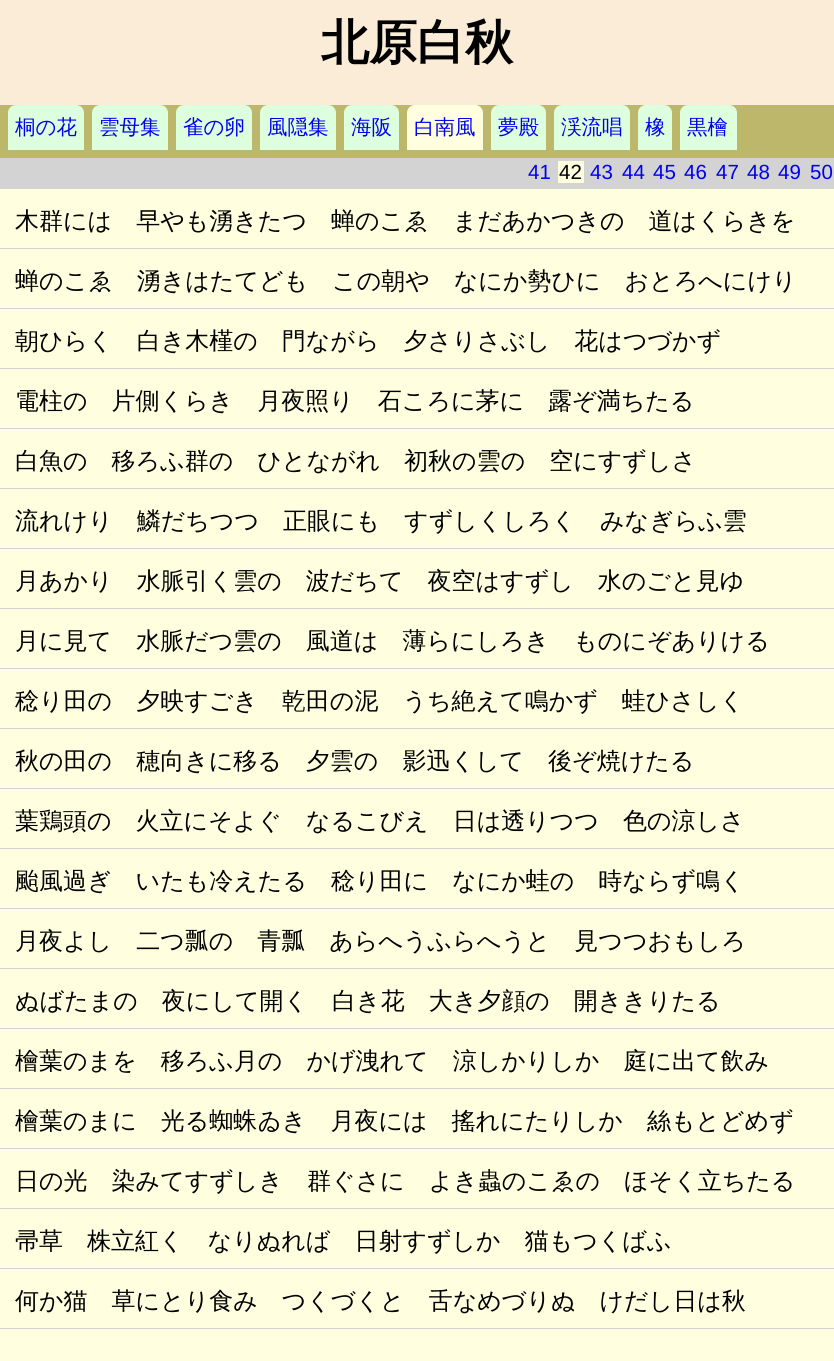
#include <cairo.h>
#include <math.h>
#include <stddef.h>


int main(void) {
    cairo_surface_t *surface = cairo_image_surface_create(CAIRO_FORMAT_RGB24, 834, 1361);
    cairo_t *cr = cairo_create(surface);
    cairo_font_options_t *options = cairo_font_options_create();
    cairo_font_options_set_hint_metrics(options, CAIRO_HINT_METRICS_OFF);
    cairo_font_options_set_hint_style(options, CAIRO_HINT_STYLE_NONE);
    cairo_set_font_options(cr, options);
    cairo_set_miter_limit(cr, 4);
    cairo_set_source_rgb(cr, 0.827, 0.827, 0.827);
    cairo_paint(cr);
    cairo_set_source_rgb(cr, 0.98, 0.922, 0.843);
    cairo_rectangle(cr, 0, 0, 834, 105);
    cairo_fill(cr);
    cairo_select_font_face(cr, "WenQuanYi Zen Hei", CAIRO_FONT_SLANT_NORMAL, CAIRO_FONT_WEIGHT_BOLD);
    cairo_set_font_size(cr, 48);
    cairo_set_source_rgb(cr, 0, 0, 0);
    cairo_move_to(cr, 321, 59);
    cairo_show_text(cr, "北原白秋");
    cairo_set_source_rgb(cr, 0.741, 0.718, 0.42);
    cairo_rectangle(cr, 0, 105, 834, 53);
    cairo_fill(cr);
    cairo_set_source_rgb(cr, 0.867, 1, 0.867);
    cairo_new_path(cr);
    cairo_move_to(cr, 16, 105);
    cairo_line_to(cr, 76, 105);
    cairo_curve_to(cr, 80.5, 105, 84, 108.5, 84, 113);
    cairo_line_to(cr, 84, 150);
    cairo_line_to(cr, 8, 150);
    cairo_line_to(cr, 8, 113);
    cairo_curve_to(cr, 8, 108.5, 11.5, 105, 16, 105);
    cairo_close_path(cr);
    cairo_fill(cr);
    cairo_select_font_face(cr, "WenQuanYi Zen Hei Medium", CAIRO_FONT_SLANT_NORMAL, CAIRO_FONT_WEIGHT_NORMAL);
    cairo_set_font_size(cr, 20.5);
    cairo_set_source_rgb(cr, 0, 0, 0.933);
    cairo_move_to(cr, 15, 134);
    cairo_show_text(cr, "桐の花");
    cairo_set_source_rgb(cr, 0.867, 1, 0.867);
    cairo_new_path(cr);
    cairo_move_to(cr, 100, 105);
    cairo_line_to(cr, 160, 105);
    cairo_curve_to(cr, 164.5, 105, 168, 108.5, 168, 113);
    cairo_line_to(cr, 168, 150);
    cairo_line_to(cr, 92, 150);
    cairo_line_to(cr, 92, 113);
    cairo_curve_to(cr, 92, 108.5, 95.5, 105, 100, 105);
    cairo_close_path(cr);
    cairo_fill(cr);
    cairo_set_source_rgb(cr, 0, 0, 0.933);
    cairo_move_to(cr, 99, 134);
    cairo_show_text(cr, "雲母集");
    cairo_set_source_rgb(cr, 0.867, 1, 0.867);
    cairo_new_path(cr);
    cairo_move_to(cr, 184, 105);
    cairo_line_to(cr, 244, 105);
    cairo_curve_to(cr, 248.5, 105, 252, 108.5, 252, 113);
    cairo_line_to(cr, 252, 150);
    cairo_line_to(cr, 176, 150);
    cairo_line_to(cr, 176, 113);
    cairo_curve_to(cr, 176, 108.5, 179.5, 105, 184, 105);
    cairo_close_path(cr);
    cairo_fill(cr);
    cairo_set_source_rgb(cr, 0, 0, 0.933);
    cairo_move_to(cr, 183, 134);
    cairo_show_text(cr, "雀の卵");
    cairo_set_source_rgb(cr, 0.867, 1, 0.867);
    cairo_new_path(cr);
    cairo_move_to(cr, 268, 105);
    cairo_line_to(cr, 328, 105);
    cairo_curve_to(cr, 332.5, 105, 336, 108.5, 336, 113);
    cairo_line_to(cr, 336, 150);
    cairo_line_to(cr, 260, 150);
    cairo_line_to(cr, 260, 113);
    cairo_curve_to(cr, 260, 108.5, 263.5, 105, 268, 105);
    cairo_close_path(cr);
    cairo_fill(cr);
    cairo_set_source_rgb(cr, 0, 0, 0.933);
    cairo_move_to(cr, 267, 134);
    cairo_show_text(cr, "風隠集");
    cairo_set_source_rgb(cr, 0.867, 1, 0.867);
    cairo_new_path(cr);
    cairo_move_to(cr, 352, 105);
    cairo_line_to(cr, 391, 105);
    cairo_curve_to(cr, 395.5, 105, 399, 108.5, 399, 113);
    cairo_line_to(cr, 399, 150);
    cairo_line_to(cr, 344, 150);
    cairo_line_to(cr, 344, 113);
    cairo_curve_to(cr, 344, 108.5, 347.5, 105, 352, 105);
    cairo_close_path(cr);
    cairo_fill(cr);
    cairo_set_source_rgb(cr, 0, 0, 0.933);
    cairo_move_to(cr, 351, 134);
    cairo_show_text(cr, "海阪");
    cairo_set_source_rgb(cr, 1, 1, 0.878);
    cairo_new_path(cr);
    cairo_move_to(cr, 415, 105);
    cairo_line_to(cr, 475, 105);
    cairo_curve_to(cr, 479.5, 105, 483, 108.5, 483, 113);
    cairo_line_to(cr, 483, 150);
    cairo_line_to(cr, 407, 150);
    cairo_line_to(cr, 407, 113);
    cairo_curve_to(cr, 407, 108.5, 410.5, 105, 415, 105);
    cairo_close_path(cr);
    cairo_fill(cr);
    cairo_set_source_rgb(cr, 0, 0, 0.933);
    cairo_move_to(cr, 414, 134);
    cairo_show_text(cr, "白南風");
    cairo_set_source_rgb(cr, 0.867, 1, 0.867);
    cairo_new_path(cr);
    cairo_move_to(cr, 499, 105);
    cairo_line_to(cr, 538, 105);
    cairo_curve_to(cr, 542.5, 105, 546, 108.5, 546, 113);
    cairo_line_to(cr, 546, 150);
    cairo_line_to(cr, 491, 150);
    cairo_line_to(cr, 491, 113);
    cairo_curve_to(cr, 491, 108.5, 494.5, 105, 499, 105);
    cairo_close_path(cr);
    cairo_fill(cr);
    cairo_set_source_rgb(cr, 0, 0, 0.933);
    cairo_move_to(cr, 498, 134);
    cairo_show_text(cr, "夢殿");
    cairo_set_source_rgb(cr, 0.867, 1, 0.867);
    cairo_new_path(cr);
    cairo_move_to(cr, 562, 105);
    cairo_line_to(cr, 622, 105);
    cairo_curve_to(cr, 626.5, 105, 630, 108.5, 630, 113);
    cairo_line_to(cr, 630, 150);
    cairo_line_to(cr, 554, 150);
    cairo_line_to(cr, 554, 113);
    cairo_curve_to(cr, 554, 108.5, 557.5, 105, 562, 105);
    cairo_close_path(cr);
    cairo_fill(cr);
    cairo_set_source_rgb(cr, 0, 0, 0.933);
    cairo_move_to(cr, 561, 134);
    cairo_show_text(cr, "渓流唱");
    cairo_set_source_rgb(cr, 0.867, 1, 0.867);
    cairo_new_path(cr);
    cairo_move_to(cr, 646, 105);
    cairo_line_to(cr, 664, 105);
    cairo_curve_to(cr, 668.5, 105, 672, 108.5, 672, 113);
    cairo_line_to(cr, 672, 150);
    cairo_line_to(cr, 638, 150);
    cairo_line_to(cr, 638, 113);
    cairo_curve_to(cr, 638, 108.5, 641.5, 105, 646, 105);
    cairo_close_path(cr);
    cairo_fill(cr);
    cairo_set_source_rgb(cr, 0, 0, 0.933);
    cairo_move_to(cr, 645, 134);
    cairo_show_text(cr, "橡");
    cairo_set_source_rgb(cr, 0.867, 1, 0.867);
    cairo_new_path(cr);
    cairo_move_to(cr, 688, 105);
    cairo_line_to(cr, 729, 105);
    cairo_curve_to(cr, 733.5, 105, 737, 108.5, 737, 113);
    cairo_line_to(cr, 737, 150);
    cairo_line_to(cr, 680, 150);
    cairo_line_to(cr, 680, 113);
    cairo_curve_to(cr, 680, 108.5, 683.5, 105, 688, 105);
    cairo_close_path(cr);
    cairo_fill(cr);
    cairo_set_source_rgb(cr, 0, 0, 0.933);
    cairo_move_to(cr, 687, 134);
    cairo_show_text(cr, "黒檜");
    cairo_select_font_face(cr, "Liberation Sans", CAIRO_FONT_SLANT_NORMAL, CAIRO_FONT_WEIGHT_NORMAL);
    cairo_move_to(cr, 528, 179);
    cairo_show_text(cr, "41");
    cairo_set_source_rgb(cr, 1, 1, 0.878);
    cairo_rectangle(cr, 558, 161, 26, 22);
    cairo_fill(cr);
    cairo_set_source_rgb(cr, 0, 0, 0);
    cairo_move_to(cr, 559, 179);
    cairo_show_text(cr, "42");
    cairo_set_source_rgb(cr, 0, 0, 0.933);
    cairo_move_to(cr, 590, 179);
    cairo_show_text(cr, "43");
    cairo_move_to(cr, 622, 179);
    cairo_show_text(cr, "44");
    cairo_move_to(cr, 653, 179);
    cairo_show_text(cr, "45");
    cairo_move_to(cr, 684, 179);
    cairo_show_text(cr, "46");
    cairo_move_to(cr, 716, 179);
    cairo_show_text(cr, "47");
    cairo_move_to(cr, 747, 179);
    cairo_show_text(cr, "48");
    cairo_move_to(cr, 778, 179);
    cairo_show_text(cr, "49");
    cairo_move_to(cr, 810, 179);
    cairo_show_text(cr, "50");
    cairo_set_source_rgb(cr, 1, 1, 0.878);
    cairo_rectangle(cr, 0, 189, 834, 59);
    cairo_fill(cr);
    cairo_select_font_face(cr, "WenQuanYi Zen Hei Medium", CAIRO_FONT_SLANT_NORMAL, CAIRO_FONT_WEIGHT_NORMAL);
    cairo_set_font_size(cr, 24);
    cairo_set_source_rgb(cr, 0, 0, 0);
    cairo_move_to(cr, 15, 229);
    cairo_show_text(cr, "木群には　早やも湧きたつ　蝉のこゑ　まだあかつきの　道はくらきを");
    cairo_set_source_rgb(cr, 1, 1, 0.878);
    cairo_rectangle(cr, 0, 249, 834, 59);
    cairo_fill(cr);
    cairo_set_source_rgb(cr, 0, 0, 0);
    cairo_move_to(cr, 15, 289);
    cairo_show_text(cr, "蝉のこゑ　湧きはたてども　この朝や　なにか勢ひに　おとろへにけり");
    cairo_set_source_rgb(cr, 1, 1, 0.878);
    cairo_rectangle(cr, 0, 309, 834, 59);
    cairo_fill(cr);
    cairo_set_source_rgb(cr, 0, 0, 0);
    cairo_move_to(cr, 15, 349);
    cairo_show_text(cr, "朝ひらく　白き木槿の　門ながら　夕さりさぶし　花はつづかず");
    cairo_set_source_rgb(cr, 1, 1, 0.878);
    cairo_rectangle(cr, 0, 369, 834, 59);
    cairo_fill(cr);
    cairo_set_source_rgb(cr, 0, 0, 0);
    cairo_move_to(cr, 15, 409);
    cairo_show_text(cr, "電柱の　片側くらき　月夜照り　石ころに茅に　露ぞ満ちたる");
    cairo_set_source_rgb(cr, 1, 1, 0.878);
    cairo_rectangle(cr, 0, 429, 834, 59);
    cairo_fill(cr);
    cairo_set_source_rgb(cr, 0, 0, 0);
    cairo_move_to(cr, 15, 469);
    cairo_show_text(cr, "白魚の　移ろふ群の　ひとながれ　初秋の雲の　空にすずしさ");
    cairo_set_source_rgb(cr, 1, 1, 0.878);
    cairo_rectangle(cr, 0, 489, 834, 59);
    cairo_fill(cr);
    cairo_set_source_rgb(cr, 0, 0, 0);
    cairo_move_to(cr, 15, 529);
    cairo_show_text(cr, "流れけり　鱗だちつつ　正眼にも　すずしくしろく　みなぎらふ雲");
    cairo_set_source_rgb(cr, 1, 1, 0.878);
    cairo_rectangle(cr, 0, 549, 834, 59);
    cairo_fill(cr);
    cairo_set_source_rgb(cr, 0, 0, 0);
    cairo_move_to(cr, 15, 589);
    cairo_show_text(cr, "月あかり　水脈引く雲の　波だちて　夜空はすずし　水のごと見ゆ");
    cairo_set_source_rgb(cr, 1, 1, 0.878);
    cairo_rectangle(cr, 0, 609, 834, 59);
    cairo_fill(cr);
    cairo_set_source_rgb(cr, 0, 0, 0);
    cairo_move_to(cr, 15, 649);
    cairo_show_text(cr, "月に見て　水脈だつ雲の　風道は　薄らにしろき　ものにぞありける");
    cairo_set_source_rgb(cr, 1, 1, 0.878);
    cairo_rectangle(cr, 0, 669, 834, 59);
    cairo_fill(cr);
    cairo_set_source_rgb(cr, 0, 0, 0);
    cairo_move_to(cr, 15, 709);
    cairo_show_text(cr, "稔り田の　夕映すごき　乾田の泥　うち絶えて鳴かず　蛙ひさしく");
    cairo_set_source_rgb(cr, 1, 1, 0.878);
    cairo_rectangle(cr, 0, 729, 834, 59);
    cairo_fill(cr);
    cairo_set_source_rgb(cr, 0, 0, 0);
    cairo_move_to(cr, 15, 769);
    cairo_show_text(cr, "秋の田の　穂向きに移る　夕雲の　影迅くして　後ぞ焼けたる");
    cairo_set_source_rgb(cr, 1, 1, 0.878);
    cairo_rectangle(cr, 0, 789, 834, 59);
    cairo_fill(cr);
    cairo_set_source_rgb(cr, 0, 0, 0);
    cairo_move_to(cr, 15, 829);
    cairo_show_text(cr, "葉鶏頭の　火立にそよぐ　なるこびえ　日は透りつつ　色の涼しさ");
    cairo_set_source_rgb(cr, 1, 1, 0.878);
    cairo_rectangle(cr, 0, 849, 834, 59);
    cairo_fill(cr);
    cairo_set_source_rgb(cr, 0, 0, 0);
    cairo_move_to(cr, 15, 889);
    cairo_show_text(cr, "颱風過ぎ　いたも冷えたる　稔り田に　なにか蛙の　時ならず鳴く");
    cairo_set_source_rgb(cr, 1, 1, 0.878);
    cairo_rectangle(cr, 0, 909, 834, 59);
    cairo_fill(cr);
    cairo_set_source_rgb(cr, 0, 0, 0);
    cairo_move_to(cr, 15, 949);
    cairo_show_text(cr, "月夜よし　二つ瓢の　青瓢　あらへうふらへうと　見つつおもしろ");
    cairo_set_source_rgb(cr, 1, 1, 0.878);
    cairo_rectangle(cr, 0, 969, 834, 59);
    cairo_fill(cr);
    cairo_set_source_rgb(cr, 0, 0, 0);
    cairo_move_to(cr, 15, 1009);
    cairo_show_text(cr, "ぬばたまの　夜にして開く　白き花　大き夕顔の　開ききりたる");
    cairo_set_source_rgb(cr, 1, 1, 0.878);
    cairo_rectangle(cr, 0, 1029, 834, 59);
    cairo_fill(cr);
    cairo_set_source_rgb(cr, 0, 0, 0);
    cairo_move_to(cr, 15, 1069);
    cairo_show_text(cr, "檜葉のまを　移ろふ月の　かげ洩れて　涼しかりしか　庭に出て飲み");
    cairo_set_source_rgb(cr, 1, 1, 0.878);
    cairo_rectangle(cr, 0, 1089, 834, 59);
    cairo_fill(cr);
    cairo_set_source_rgb(cr, 0, 0, 0);
    cairo_move_to(cr, 15, 1129);
    cairo_show_text(cr, "檜葉のまに　光る蜘蛛ゐき　月夜には　搖れにたりしか　絲もとどめず");
    cairo_set_source_rgb(cr, 1, 1, 0.878);
    cairo_rectangle(cr, 0, 1149, 834, 59);
    cairo_fill(cr);
    cairo_set_source_rgb(cr, 0, 0, 0);
    cairo_move_to(cr, 15, 1189);
    cairo_show_text(cr, "日の光　染みてすずしき　群ぐさに　よき蟲のこゑの　ほそく立ちたる");
    cairo_set_source_rgb(cr, 1, 1, 0.878);
    cairo_rectangle(cr, 0, 1209, 834, 59);
    cairo_fill(cr);
    cairo_set_source_rgb(cr, 0, 0, 0);
    cairo_move_to(cr, 15, 1249);
    cairo_show_text(cr, "帚草　株立紅く　なりぬれば　日射すずしか　猫もつくばふ");
    cairo_set_source_rgb(cr, 1, 1, 0.878);
    cairo_rectangle(cr, 0, 1269, 834, 59);
    cairo_fill(cr);
    cairo_set_source_rgb(cr, 0, 0, 0);
    cairo_move_to(cr, 15, 1309);
    cairo_show_text(cr, "何か猫　草にとり食み　つくづくと　舌なめづりぬ　けだし日は秋");
    cairo_set_source_rgb(cr, 1, 1, 0.878);
    cairo_rectangle(cr, 0, 1329, 834, 32);
    cairo_fill(cr);
    cairo_surface_write_to_png(surface, "page.png");
    cairo_font_options_destroy(options);
    cairo_destroy(cr);
    cairo_surface_destroy(surface);
    return 0;
}
